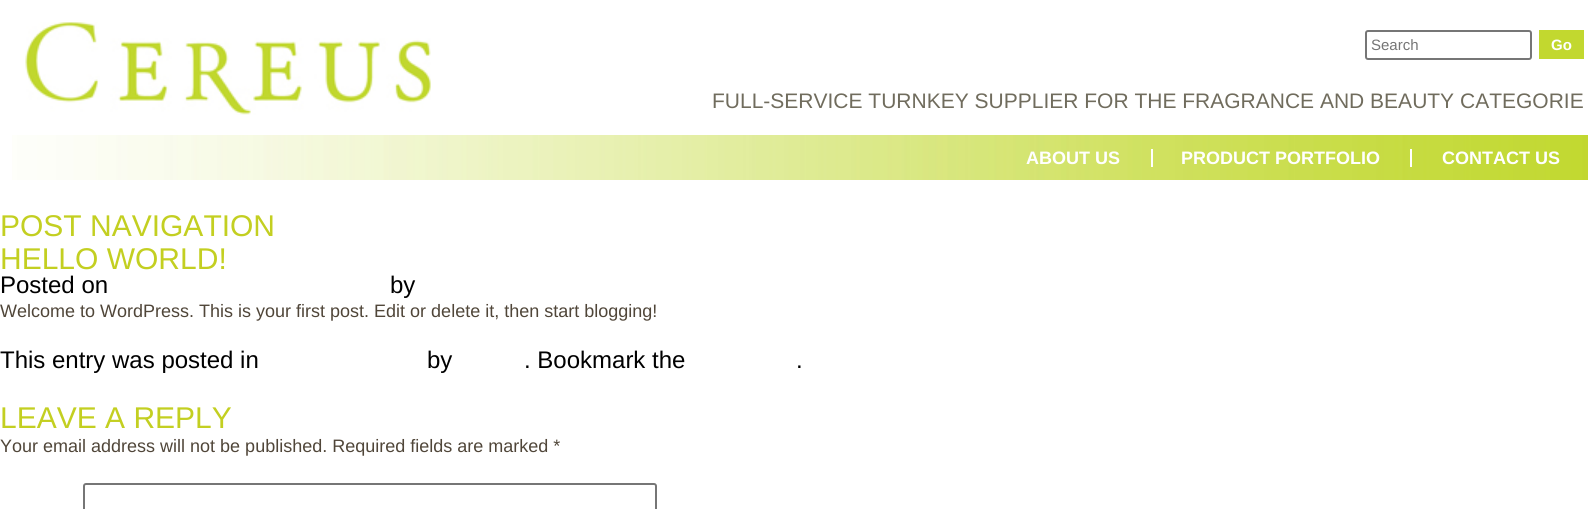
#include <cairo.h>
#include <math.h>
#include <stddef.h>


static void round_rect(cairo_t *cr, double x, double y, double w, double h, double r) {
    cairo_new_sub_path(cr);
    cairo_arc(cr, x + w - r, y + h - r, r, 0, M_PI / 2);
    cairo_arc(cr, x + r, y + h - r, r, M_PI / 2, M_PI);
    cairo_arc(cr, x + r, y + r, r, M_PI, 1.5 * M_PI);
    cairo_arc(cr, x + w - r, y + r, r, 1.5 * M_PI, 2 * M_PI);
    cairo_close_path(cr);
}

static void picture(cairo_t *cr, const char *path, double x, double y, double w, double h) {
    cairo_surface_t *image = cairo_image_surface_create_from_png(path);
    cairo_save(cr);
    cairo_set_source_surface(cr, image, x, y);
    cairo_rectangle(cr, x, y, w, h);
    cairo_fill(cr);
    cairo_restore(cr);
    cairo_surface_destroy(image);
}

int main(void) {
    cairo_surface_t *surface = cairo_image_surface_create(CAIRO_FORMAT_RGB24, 1588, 509);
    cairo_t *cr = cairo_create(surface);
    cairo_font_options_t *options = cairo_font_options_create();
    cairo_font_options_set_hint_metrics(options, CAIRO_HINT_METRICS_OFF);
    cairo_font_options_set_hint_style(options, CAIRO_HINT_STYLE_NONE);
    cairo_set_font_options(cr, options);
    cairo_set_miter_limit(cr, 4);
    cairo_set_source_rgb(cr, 1, 1, 1);
    cairo_paint(cr);
    picture(cr, "img1.png", 25, 22, 406, 93);
    round_rect(cr, 1366, 31, 165, 28, 2);
    cairo_set_source_rgb(cr, 0.463, 0.463, 0.463);
    cairo_stroke(cr);
    cairo_select_font_face(cr, "Liberation Sans", CAIRO_FONT_SLANT_NORMAL, CAIRO_FONT_WEIGHT_NORMAL);
    cairo_set_font_size(cr, 15);
    cairo_set_source_rgb(cr, 0.459, 0.459, 0.459);
    cairo_move_to(cr, 1371, 50);
    cairo_show_text(cr, "Search");
    cairo_set_source_rgb(cr, 0.761, 0.847, 0.184);
    cairo_rectangle(cr, 1539, 30, 45, 29);
    cairo_fill(cr);
    cairo_select_font_face(cr, "Liberation Sans", CAIRO_FONT_SLANT_NORMAL, CAIRO_FONT_WEIGHT_BOLD);
    cairo_set_source_rgb(cr, 1, 1, 1);
    cairo_move_to(cr, 1551, 50);
    cairo_show_text(cr, "Go");
    cairo_select_font_face(cr, "Liberation Sans", CAIRO_FONT_SLANT_NORMAL, CAIRO_FONT_WEIGHT_NORMAL);
    cairo_set_font_size(cr, 21);
    cairo_set_source_rgb(cr, 0.439, 0.424, 0.365);
    cairo_move_to(cr, 712, 108);
    cairo_show_text(cr, "FULL-SERVICE TURNKEY SUPPLIER FOR THE FRAGRANCE AND BEAUTY CATEGORIE");
    picture(cr, "img2.png", 12, 135, 1576, 45);
    cairo_set_source_rgb(cr, 1, 1, 1);
    cairo_rectangle(cr, 1151, 149, 2, 18);
    cairo_fill(cr);
    cairo_select_font_face(cr, "Liberation Sans", CAIRO_FONT_SLANT_NORMAL, CAIRO_FONT_WEIGHT_BOLD);
    cairo_set_font_size(cr, 18);
    cairo_move_to(cr, 1026, 164);
    cairo_show_text(cr, "ABOUT US");
    cairo_rectangle(cr, 1410, 149, 2, 18);
    cairo_fill(cr);
    cairo_move_to(cr, 1181, 164);
    cairo_show_text(cr, "PRODUCT PORTFOLIO");
    cairo_move_to(cr, 1442, 164);
    cairo_show_text(cr, "CONTACT US");
    cairo_select_font_face(cr, "Liberation Sans", CAIRO_FONT_SLANT_NORMAL, CAIRO_FONT_WEIGHT_NORMAL);
    cairo_set_font_size(cr, 30);
    cairo_set_source_rgb(cr, 0.765, 0.812, 0.129);
    cairo_move_to(cr, 0, 236);
    cairo_show_text(cr, "POST NAVIGATION");
    cairo_move_to(cr, 0, 269);
    cairo_show_text(cr, "HELLO WORLD!");
    cairo_set_font_size(cr, 24);
    cairo_set_source_rgb(cr, 0, 0, 0);
    cairo_move_to(cr, 0, 293);
    cairo_show_text(cr, "Posted on");
    cairo_move_to(cr, 390, 293);
    cairo_show_text(cr, "by");
    cairo_set_font_size(cr, 18);
    cairo_set_source_rgb(cr, 0.314, 0.275, 0.224);
    cairo_move_to(cr, 0, 317);
    cairo_show_text(cr, "Welcome to WordPress. This is your first post. Edit or delete it, then start blogging!");
    cairo_set_font_size(cr, 24);
    cairo_set_source_rgb(cr, 0, 0, 0);
    cairo_move_to(cr, 0, 368);
    cairo_show_text(cr, "This entry was posted in");
    cairo_move_to(cr, 427, 368);
    cairo_show_text(cr, "by");
    cairo_move_to(cr, 524, 368);
    cairo_show_text(cr, ". Bookmark the");
    cairo_move_to(cr, 796, 368);
    cairo_show_text(cr, ".");
    cairo_set_font_size(cr, 30);
    cairo_set_source_rgb(cr, 0.765, 0.812, 0.129);
    cairo_move_to(cr, 0, 428);
    cairo_show_text(cr, "LEAVE A REPLY");
    cairo_set_font_size(cr, 18);
    cairo_set_source_rgb(cr, 0.314, 0.275, 0.224);
    cairo_move_to(cr, 0, 452);
    cairo_show_text(cr, "Your email address will not be published. Required fields are marked *");
    round_rect(cr, 84, 484, 572, 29, 2);
    cairo_set_source_rgb(cr, 0.463, 0.463, 0.463);
    cairo_stroke(cr);
    cairo_surface_write_to_png(surface, "page.png");
    cairo_font_options_destroy(options);
    cairo_destroy(cr);
    cairo_surface_destroy(surface);
    return 0;
}
